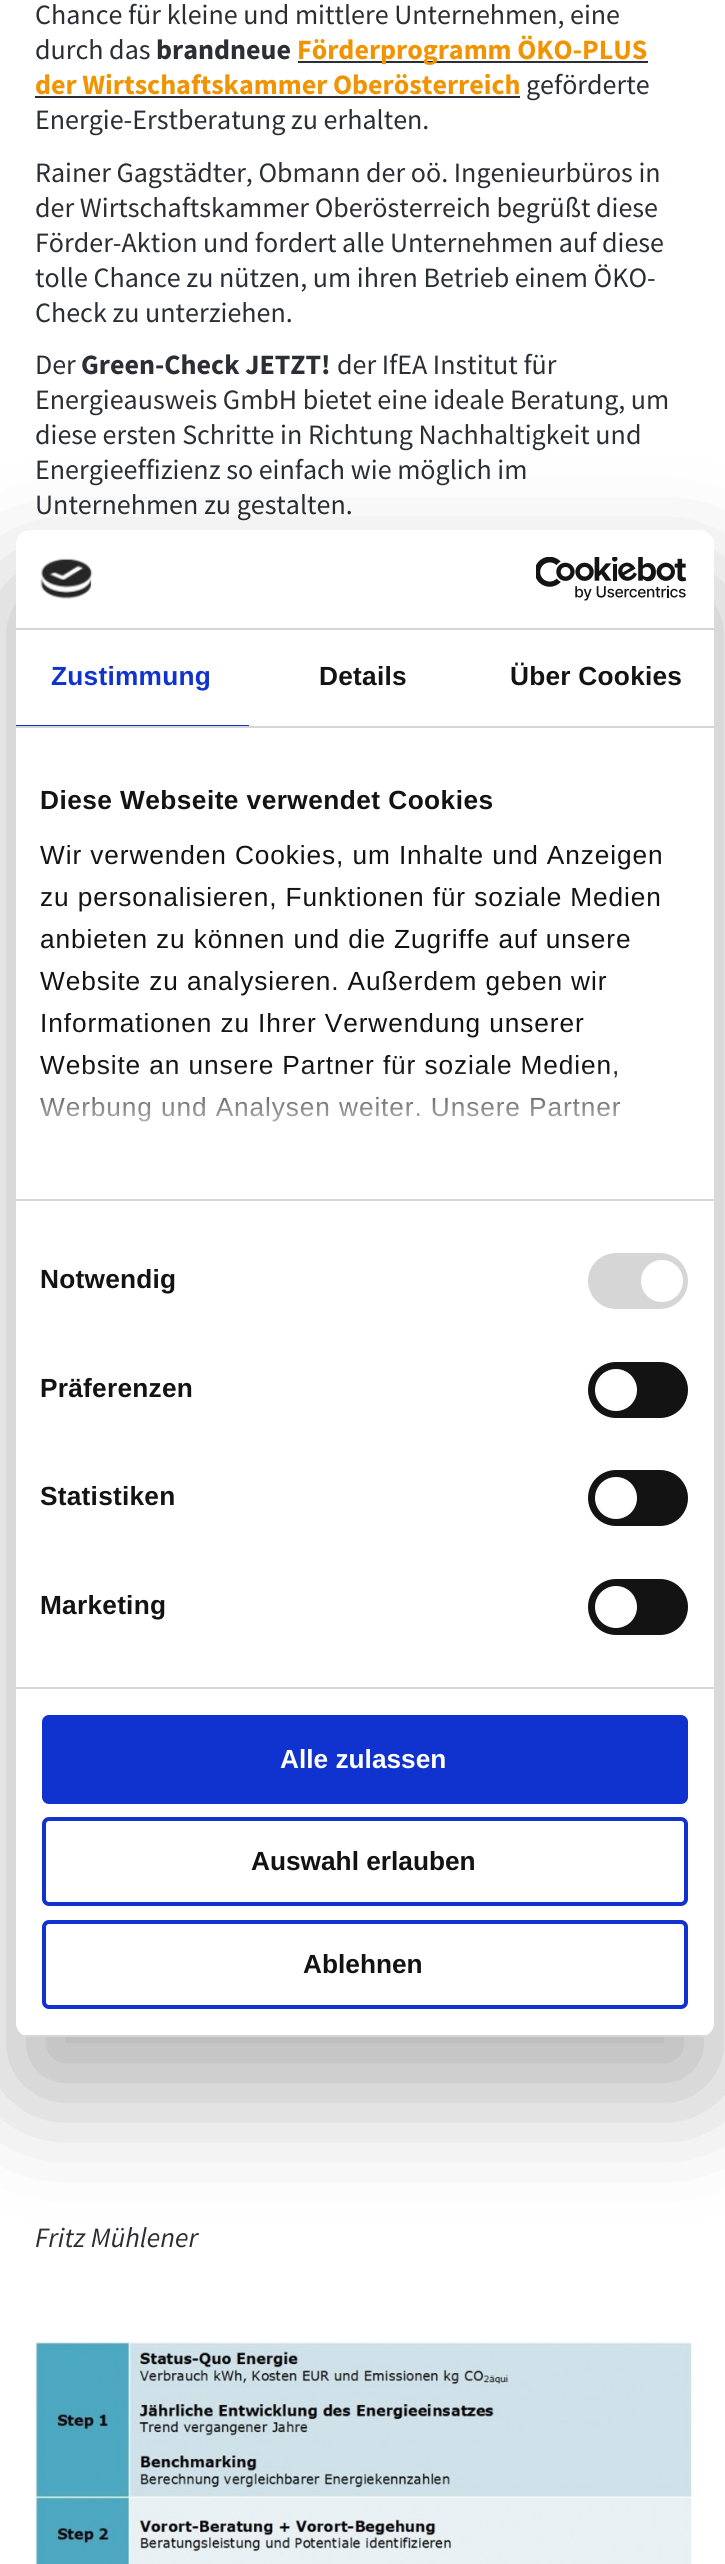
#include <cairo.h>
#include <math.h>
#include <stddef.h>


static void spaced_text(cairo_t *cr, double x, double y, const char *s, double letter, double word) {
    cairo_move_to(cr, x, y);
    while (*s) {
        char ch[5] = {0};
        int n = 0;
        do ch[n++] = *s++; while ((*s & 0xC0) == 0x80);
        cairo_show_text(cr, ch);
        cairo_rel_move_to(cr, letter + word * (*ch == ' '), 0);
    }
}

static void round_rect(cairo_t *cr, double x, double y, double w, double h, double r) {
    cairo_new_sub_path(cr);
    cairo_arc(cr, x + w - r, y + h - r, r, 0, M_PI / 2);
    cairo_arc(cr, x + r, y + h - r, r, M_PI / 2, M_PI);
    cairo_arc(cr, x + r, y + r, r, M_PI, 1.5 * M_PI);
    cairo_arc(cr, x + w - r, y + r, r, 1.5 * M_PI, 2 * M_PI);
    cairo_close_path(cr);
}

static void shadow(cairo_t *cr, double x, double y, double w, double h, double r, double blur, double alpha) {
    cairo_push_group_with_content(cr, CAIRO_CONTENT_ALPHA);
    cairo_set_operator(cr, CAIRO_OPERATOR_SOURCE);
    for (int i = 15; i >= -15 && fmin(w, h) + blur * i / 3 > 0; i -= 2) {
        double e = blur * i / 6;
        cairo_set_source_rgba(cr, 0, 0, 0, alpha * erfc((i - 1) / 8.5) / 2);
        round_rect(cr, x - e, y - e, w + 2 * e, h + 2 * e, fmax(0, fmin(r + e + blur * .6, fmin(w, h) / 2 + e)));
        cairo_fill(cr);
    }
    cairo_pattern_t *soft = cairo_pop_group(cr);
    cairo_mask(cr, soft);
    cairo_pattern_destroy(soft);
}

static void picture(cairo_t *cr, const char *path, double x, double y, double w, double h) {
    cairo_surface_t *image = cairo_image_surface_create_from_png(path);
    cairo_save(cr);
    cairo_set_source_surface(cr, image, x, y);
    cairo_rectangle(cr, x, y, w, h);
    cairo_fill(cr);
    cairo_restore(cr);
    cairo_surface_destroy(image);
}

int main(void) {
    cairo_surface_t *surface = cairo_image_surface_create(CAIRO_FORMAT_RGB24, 725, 2564);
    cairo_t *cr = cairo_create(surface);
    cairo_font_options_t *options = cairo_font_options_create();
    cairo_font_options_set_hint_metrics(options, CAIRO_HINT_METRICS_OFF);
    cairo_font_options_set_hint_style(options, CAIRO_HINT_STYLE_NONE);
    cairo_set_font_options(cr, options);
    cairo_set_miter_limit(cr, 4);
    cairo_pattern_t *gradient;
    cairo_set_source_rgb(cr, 1, 1, 1);
    cairo_paint(cr);
    cairo_select_font_face(cr, "Source Sans Pro", CAIRO_FONT_SLANT_NORMAL, CAIRO_FONT_WEIGHT_NORMAL);
    cairo_set_font_size(cr, 28);
    cairo_set_source_rgb(cr, 0.169, 0.18, 0.204);
    cairo_move_to(cr, 35, 24);
    cairo_show_text(cr, "Chance für kleine und mittlere Unternehmen, eine");
    cairo_move_to(cr, 35, 59);
    cairo_show_text(cr, "durch das");
    cairo_select_font_face(cr, "Source Sans Pro", CAIRO_FONT_SLANT_NORMAL, CAIRO_FONT_WEIGHT_BOLD);
    cairo_move_to(cr, 156, 59);
    cairo_show_text(cr, "brandneue");
    cairo_rectangle(cr, 298, 61, 350, 2);
    cairo_fill(cr);
    cairo_set_source_rgb(cr, 0.945, 0.58, 0.012);
    cairo_move_to(cr, 297, 59);
    cairo_show_text(cr, "Förderprogramm ÖKO-PLUS");
    cairo_move_to(cr, 35, 94);
    cairo_show_text(cr, "der Wirtschaftskammer Oberösterreich");
    cairo_set_source_rgb(cr, 0.169, 0.18, 0.204);
    cairo_rectangle(cr, 35, 96, 485, 2);
    cairo_fill(cr);
    cairo_select_font_face(cr, "Source Sans Pro", CAIRO_FONT_SLANT_NORMAL, CAIRO_FONT_WEIGHT_NORMAL);
    cairo_move_to(cr, 526, 94);
    cairo_show_text(cr, "geförderte");
    cairo_move_to(cr, 35, 129);
    cairo_show_text(cr, "Energie-Erstberatung zu erhalten.");
    cairo_move_to(cr, 35, 182);
    cairo_show_text(cr, "Rainer Gagstädter, Obmann der oö. Ingenieurbüros in");
    cairo_move_to(cr, 35, 217);
    cairo_show_text(cr, "der Wirtschaftskammer Oberösterreich begrüßt diese");
    cairo_move_to(cr, 35, 252);
    cairo_show_text(cr, "Förder-Aktion und fordert alle Unternehmen auf diese");
    cairo_move_to(cr, 35, 287);
    cairo_show_text(cr, "tolle Chance zu nützen, um ihren Betrieb einem ÖKO-");
    cairo_move_to(cr, 35, 322);
    cairo_show_text(cr, "Check zu unterziehen.");
    cairo_move_to(cr, 35, 374);
    cairo_show_text(cr, "Der");
    cairo_select_font_face(cr, "Source Sans Pro", CAIRO_FONT_SLANT_NORMAL, CAIRO_FONT_WEIGHT_BOLD);
    cairo_move_to(cr, 81, 374);
    cairo_show_text(cr, "Green-Check JETZT!");
    cairo_select_font_face(cr, "Source Sans Pro", CAIRO_FONT_SLANT_NORMAL, CAIRO_FONT_WEIGHT_NORMAL);
    cairo_move_to(cr, 337, 374);
    cairo_show_text(cr, "der IfEA Institut für");
    cairo_move_to(cr, 35, 409);
    cairo_show_text(cr, "Energieausweis GmbH bietet eine ideale Beratung, um");
    cairo_move_to(cr, 35, 444);
    cairo_show_text(cr, "diese ersten Schritte in Richtung Nachhaltigkeit und");
    cairo_move_to(cr, 35, 479);
    cairo_show_text(cr, "Energieeffizienz so einfach wie möglich im");
    cairo_move_to(cr, 35, 514);
    cairo_show_text(cr, "Unternehmen zu gestalten.");
    cairo_select_font_face(cr, "Source Sans Pro", CAIRO_FONT_SLANT_ITALIC, CAIRO_FONT_WEIGHT_NORMAL);
    cairo_move_to(cr, 35, 2247);
    cairo_show_text(cr, "Fritz Mühlener");
    picture(cr, "img1.png", 35, 2341, 657, 223);
    cairo_set_source_rgb(cr, 0, 0, 0);
    shadow(cr, 16, 586, 698, 1507, 14, 59.5, 0.3);
    cairo_set_source_rgb(cr, 1, 1, 1);
    round_rect(cr, 16, 530, 698, 1507, 14);
    cairo_fill(cr);
    cairo_set_source_rgb(cr, 0.839, 0.839, 0.839);
    cairo_rectangle(cr, 16, 628, 698, 2);
    cairo_fill(cr);
    picture(cr, "img2.png", 40, 558, 53, 41);
    picture(cr, "img3.png", 536, 557, 151, 44);
    cairo_rectangle(cr, 16, 726, 698, 2);
    cairo_fill(cr);
    cairo_set_source_rgb(cr, 0.063, 0.196, 0.812);
    cairo_rectangle(cr, 16, 725, 233, 1);
    cairo_fill(cr);
    cairo_select_font_face(cr, "Liberation Sans", CAIRO_FONT_SLANT_NORMAL, CAIRO_FONT_WEIGHT_BOLD);
    cairo_set_font_size(cr, 26.25);
    spaced_text(cr, 51, 685, "Zustimmung", 0.25, 0);
    cairo_set_source_rgb(cr, 0.078, 0.078, 0.078);
    spaced_text(cr, 319, 685, "Details", 0.25, 0);
    spaced_text(cr, 510, 685, "Über Cookies", 0.25, 0);
    cairo_set_source_rgb(cr, 0.839, 0.839, 0.839);
    cairo_rectangle(cr, 16, 1199, 698, 2);
    cairo_fill(cr);
    cairo_set_source_rgb(cr, 0.078, 0.078, 0.078);
    spaced_text(cr, 40, 809, "Diese Webseite verwendet Cookies", 0.45, 0);
    cairo_select_font_face(cr, "Liberation Sans", CAIRO_FONT_SLANT_NORMAL, CAIRO_FONT_WEIGHT_NORMAL);
    spaced_text(cr, 40, 864, "Wir verwenden Cookies, um Inhalte und Anzeigen", 0.9, 0);
    spaced_text(cr, 40, 906, "zu personalisieren, Funktionen für soziale Medien", 0.9, 0);
    spaced_text(cr, 40, 948, "anbieten zu können und die Zugriffe auf unsere", 0.9, 0);
    spaced_text(cr, 40, 990, "Website zu analysieren. Außerdem geben wir", 0.9, 0);
    spaced_text(cr, 40, 1032, "Informationen zu Ihrer Verwendung unserer", 0.9, 0);
    spaced_text(cr, 40, 1074, "Website an unsere Partner für soziale Medien,", 0.9, 0);
    spaced_text(cr, 40, 1116, "Werbung und Analysen weiter. Unsere Partner", 0.9, 0);
    gradient = cairo_pattern_create_linear(353, 1198, 353, 1067);
    cairo_pattern_add_color_stop_rgba(gradient, 0, 1, 1, 1, 1);
    cairo_pattern_add_color_stop_rgba(gradient, 0.5, 1, 1, 1, 0.8);
    cairo_pattern_add_color_stop_rgba(gradient, 1, 1, 1, 1, 0);
    cairo_set_source(cr, gradient);
    cairo_pattern_destroy(gradient);
    cairo_rectangle(cr, 40, 1069, 580, 53);
    cairo_fill(cr);
    cairo_set_source_rgb(cr, 0.839, 0.839, 0.839);
    cairo_rectangle(cr, 16, 1687, 698, 2);
    cairo_fill(cr);
    cairo_select_font_face(cr, "Liberation Sans", CAIRO_FONT_SLANT_NORMAL, CAIRO_FONT_WEIGHT_BOLD);
    cairo_set_source_rgb(cr, 0.078, 0.078, 0.078);
    spaced_text(cr, 40, 1288, "Notwendig", 0.25, 0);
    cairo_set_source_rgb(cr, 0.839, 0.839, 0.839);
    round_rect(cr, 588, 1253, 100, 56, 28);
    cairo_fill(cr);
    cairo_set_source_rgb(cr, 1, 1, 1);
    cairo_arc(cr, 662, 1281, 21, 0, 2 * M_PI);
    cairo_fill(cr);
    cairo_set_source_rgb(cr, 0.078, 0.078, 0.078);
    spaced_text(cr, 40, 1397, "Präferenzen", 0.25, 0);
    round_rect(cr, 588, 1362, 100, 56, 28);
    cairo_fill(cr);
    cairo_set_source_rgb(cr, 1, 1, 1);
    cairo_arc(cr, 616, 1390, 21, 0, 2 * M_PI);
    cairo_fill(cr);
    cairo_set_source_rgb(cr, 0.078, 0.078, 0.078);
    spaced_text(cr, 40, 1505, "Statistiken", 0.25, 0);
    round_rect(cr, 588, 1470, 100, 56, 28);
    cairo_fill(cr);
    cairo_set_source_rgb(cr, 1, 1, 1);
    cairo_arc(cr, 616, 1498, 21, 0, 2 * M_PI);
    cairo_fill(cr);
    cairo_set_source_rgb(cr, 0.078, 0.078, 0.078);
    spaced_text(cr, 40, 1614, "Marketing", 0.25, 0);
    round_rect(cr, 588, 1579, 100, 56, 28);
    cairo_fill(cr);
    cairo_set_source_rgb(cr, 1, 1, 1);
    cairo_arc(cr, 616, 1607, 21, 0, 2 * M_PI);
    cairo_fill(cr);
    cairo_save(cr);
    round_rect(cr, 16, 530, 698, 1507, 14);
    cairo_clip(cr);
    cairo_set_source_rgb(cr, 0.839, 0.839, 0.839);
    cairo_rectangle(cr, 16, 2035, 698, 2);
    cairo_fill(cr);
    cairo_restore(cr);
    cairo_set_source_rgb(cr, 0.063, 0.196, 0.812);
    round_rect(cr, 44, 1717, 642, 85, 5);
    cairo_fill_preserve(cr);
    cairo_set_line_width(cr, 4);
    cairo_stroke(cr);
    cairo_set_source_rgb(cr, 1, 1, 1);
    cairo_move_to(cr, 280, 1768);
    cairo_show_text(cr, "Alle zulassen");
    round_rect(cr, 44, 1819, 642, 85, 5);
    cairo_set_source_rgb(cr, 0.063, 0.196, 0.812);
    cairo_stroke(cr);
    cairo_set_source_rgb(cr, 0.078, 0.078, 0.078);
    cairo_move_to(cr, 251, 1870);
    cairo_show_text(cr, "Auswahl erlauben");
    round_rect(cr, 44, 1922, 642, 85, 5);
    cairo_set_source_rgb(cr, 0.063, 0.196, 0.812);
    cairo_stroke(cr);
    cairo_set_source_rgb(cr, 0.078, 0.078, 0.078);
    cairo_move_to(cr, 303, 1973);
    cairo_show_text(cr, "Ablehnen");
    cairo_surface_write_to_png(surface, "page.png");
    cairo_font_options_destroy(options);
    cairo_destroy(cr);
    cairo_surface_destroy(surface);
    return 0;
}
